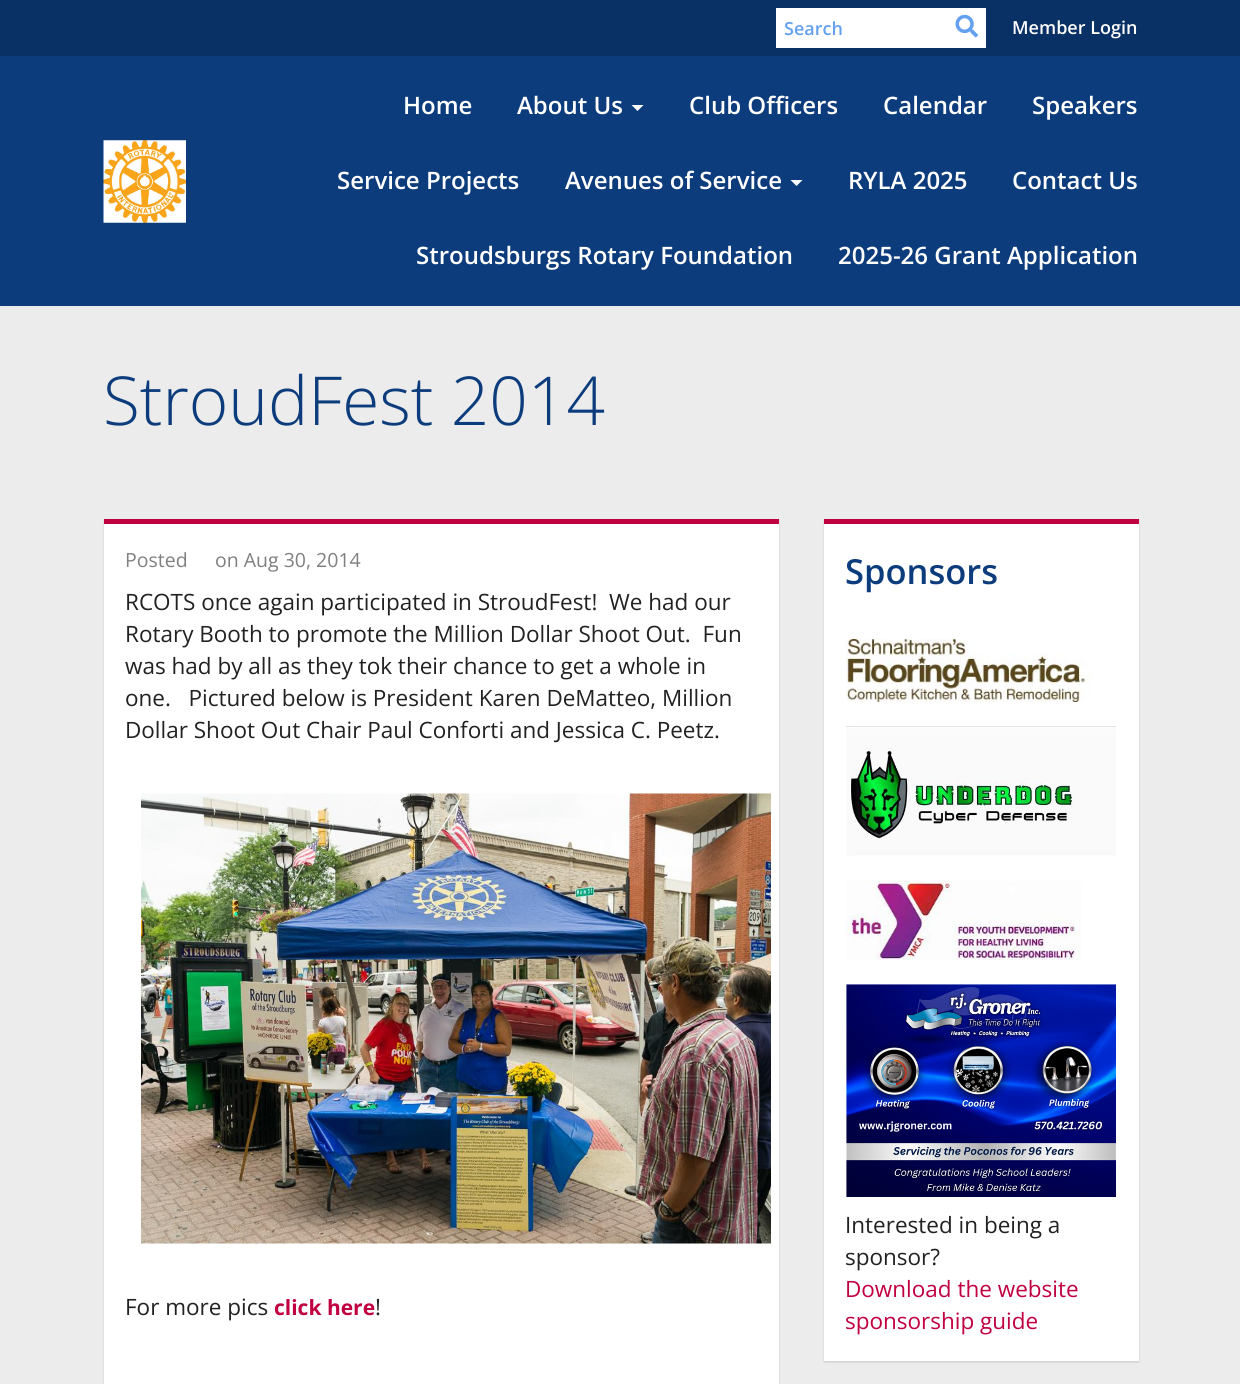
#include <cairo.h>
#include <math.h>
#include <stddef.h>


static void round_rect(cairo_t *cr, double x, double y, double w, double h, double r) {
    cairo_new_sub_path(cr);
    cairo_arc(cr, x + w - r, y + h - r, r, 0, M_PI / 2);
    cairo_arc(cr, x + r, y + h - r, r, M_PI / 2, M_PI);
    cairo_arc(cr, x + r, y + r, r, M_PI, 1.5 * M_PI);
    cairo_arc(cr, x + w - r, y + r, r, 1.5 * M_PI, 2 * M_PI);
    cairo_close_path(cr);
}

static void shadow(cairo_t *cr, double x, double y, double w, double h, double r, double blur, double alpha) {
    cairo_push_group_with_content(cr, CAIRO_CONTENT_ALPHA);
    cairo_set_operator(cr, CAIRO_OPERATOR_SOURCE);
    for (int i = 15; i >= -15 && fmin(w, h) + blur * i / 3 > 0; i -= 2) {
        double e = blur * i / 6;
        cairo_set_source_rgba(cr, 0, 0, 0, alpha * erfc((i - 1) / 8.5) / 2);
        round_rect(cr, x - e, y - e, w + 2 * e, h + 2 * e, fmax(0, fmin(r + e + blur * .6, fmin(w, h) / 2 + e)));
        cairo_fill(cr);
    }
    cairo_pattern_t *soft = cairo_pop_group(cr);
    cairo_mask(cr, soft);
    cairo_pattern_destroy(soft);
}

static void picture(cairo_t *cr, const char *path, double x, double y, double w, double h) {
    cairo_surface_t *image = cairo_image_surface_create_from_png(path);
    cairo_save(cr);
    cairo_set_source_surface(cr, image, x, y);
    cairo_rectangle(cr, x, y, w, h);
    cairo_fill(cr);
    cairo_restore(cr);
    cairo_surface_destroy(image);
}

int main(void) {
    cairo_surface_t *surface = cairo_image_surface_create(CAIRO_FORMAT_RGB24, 1240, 1384);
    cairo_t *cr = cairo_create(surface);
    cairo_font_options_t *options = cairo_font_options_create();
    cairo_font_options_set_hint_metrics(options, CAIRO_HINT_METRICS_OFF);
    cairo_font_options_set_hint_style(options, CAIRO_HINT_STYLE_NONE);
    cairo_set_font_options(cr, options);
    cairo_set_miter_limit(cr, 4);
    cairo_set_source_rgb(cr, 0.925, 0.925, 0.925);
    cairo_paint(cr);
    cairo_set_source_rgb(cr, 0.039, 0.192, 0.396);
    cairo_rectangle(cr, 0, 0, 1240, 56);
    cairo_fill(cr);
    cairo_set_source_rgb(cr, 1, 1, 1);
    cairo_rectangle(cr, 776, 8, 210, 40);
    cairo_fill(cr);
    cairo_select_font_face(cr, "Open Sans SemiBold", CAIRO_FONT_SLANT_NORMAL, CAIRO_FONT_WEIGHT_NORMAL);
    cairo_set_font_size(cr, 18);
    cairo_set_source_rgb(cr, 0.392, 0.627, 0.941);
    cairo_move_to(cr, 784, 35);
    cairo_show_text(cr, "Search");
    picture(cr, "img1.png", 955, 14, 23, 24);
    cairo_set_source_rgb(cr, 1, 1, 1);
    cairo_move_to(cr, 1012, 34);
    cairo_show_text(cr, "Member Login");
    cairo_set_source_rgb(cr, 0.047, 0.235, 0.486);
    cairo_rectangle(cr, 0, 56, 1240, 250);
    cairo_fill(cr);
    picture(cr, "img2.png", 103, 140, 83, 83);
    cairo_set_font_size(cr, 24);
    cairo_set_source_rgb(cr, 1, 1, 1);
    cairo_move_to(cr, 403, 114);
    cairo_show_text(cr, "Home");
    cairo_move_to(cr, 517, 114);
    cairo_show_text(cr, "About Us");
    cairo_new_path(cr);
    cairo_move_to(cr, 631.5, 105);
    cairo_line_to(cr, 643.5, 105);
    cairo_line_to(cr, 637.5, 111);
    cairo_close_path(cr);
    cairo_fill(cr);
    cairo_move_to(cr, 689, 114);
    cairo_show_text(cr, "Club Officers");
    cairo_move_to(cr, 883, 114);
    cairo_show_text(cr, "Calendar");
    cairo_move_to(cr, 1032, 114);
    cairo_show_text(cr, "Speakers");
    cairo_move_to(cr, 337, 189);
    cairo_show_text(cr, "Service Projects");
    cairo_move_to(cr, 565, 189);
    cairo_show_text(cr, "Avenues of Service");
    cairo_new_path(cr);
    cairo_move_to(cr, 790.5, 180);
    cairo_line_to(cr, 802.5, 180);
    cairo_line_to(cr, 796.5, 186);
    cairo_close_path(cr);
    cairo_fill(cr);
    cairo_move_to(cr, 848, 189);
    cairo_show_text(cr, "RYLA 2025");
    cairo_move_to(cr, 1012, 189);
    cairo_show_text(cr, "Contact Us");
    cairo_move_to(cr, 416, 264);
    cairo_show_text(cr, "Stroudsburgs Rotary Foundation");
    cairo_move_to(cr, 838, 264);
    cairo_show_text(cr, "2025-26 Grant Application");
    cairo_select_font_face(cr, "Open Sans Light", CAIRO_FONT_SLANT_NORMAL, CAIRO_FONT_WEIGHT_NORMAL);
    cairo_set_font_size(cr, 67.5);
    cairo_set_source_rgb(cr, 0.047, 0.235, 0.486);
    cairo_move_to(cr, 103, 425);
    cairo_show_text(cr, "StroudFest 2014");
    cairo_set_source_rgb(cr, 0, 0, 0);
    shadow(cr, 104, 521, 675, 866, 0, 1, 0.15);
    cairo_set_source_rgb(cr, 1, 1, 1);
    cairo_rectangle(cr, 104, 524, 675, 860);
    cairo_fill(cr);
    cairo_set_source_rgb(cr, 0.757, 0, 0.259);
    cairo_rectangle(cr, 104, 519, 675, 5);
    cairo_fill(cr);
    cairo_select_font_face(cr, "Open Sans", CAIRO_FONT_SLANT_NORMAL, CAIRO_FONT_WEIGHT_NORMAL);
    cairo_set_font_size(cr, 19.5);
    cairo_set_source_rgb(cr, 0.502, 0.502, 0.502);
    cairo_move_to(cr, 125, 567);
    cairo_show_text(cr, "Posted");
    cairo_move_to(cr, 215, 567);
    cairo_show_text(cr, "on Aug 30, 2014");
    cairo_set_font_size(cr, 22.5);
    cairo_set_source_rgb(cr, 0.133, 0.133, 0.133);
    cairo_move_to(cr, 125, 610);
    cairo_show_text(cr, "RCOTS once again participated in StroudFest!  We had our");
    cairo_move_to(cr, 125, 642);
    cairo_show_text(cr, "Rotary Booth to promote the Million Dollar Shoot Out.  Fun");
    cairo_move_to(cr, 125, 674);
    cairo_show_text(cr, "was had by all as they tok their chance to get a whole in");
    cairo_move_to(cr, 125, 706);
    cairo_show_text(cr, "one.   Pictured below is President Karen DeMatteo, Million");
    cairo_move_to(cr, 125, 738);
    cairo_show_text(cr, "Dollar Shoot Out Chair Paul Conforti and Jessica C. Peetz.");
    picture(cr, "img3.png", 141, 793, 630, 451);
    cairo_move_to(cr, 125, 1315);
    cairo_show_text(cr, "For more pics");
    cairo_select_font_face(cr, "Open Sans", CAIRO_FONT_SLANT_NORMAL, CAIRO_FONT_WEIGHT_BOLD);
    cairo_set_font_size(cr, 21);
    cairo_set_source_rgb(cr, 0.757, 0, 0.259);
    cairo_move_to(cr, 274, 1315);
    cairo_show_text(cr, "click here");
    cairo_select_font_face(cr, "Open Sans", CAIRO_FONT_SLANT_NORMAL, CAIRO_FONT_WEIGHT_NORMAL);
    cairo_set_font_size(cr, 22.5);
    cairo_set_source_rgb(cr, 0.133, 0.133, 0.133);
    cairo_move_to(cr, 375, 1315);
    cairo_show_text(cr, "!");
    cairo_set_source_rgb(cr, 0, 0, 0);
    shadow(cr, 824, 521, 315, 841, 0, 1, 0.15);
    cairo_set_source_rgb(cr, 1, 1, 1);
    cairo_rectangle(cr, 824, 524, 315, 837);
    cairo_fill(cr);
    cairo_set_source_rgb(cr, 0.757, 0, 0.259);
    cairo_rectangle(cr, 824, 519, 315, 5);
    cairo_fill(cr);
    cairo_select_font_face(cr, "Open Sans SemiBold", CAIRO_FONT_SLANT_NORMAL, CAIRO_FONT_WEIGHT_NORMAL);
    cairo_set_font_size(cr, 34.5);
    cairo_set_source_rgb(cr, 0.047, 0.235, 0.486);
    cairo_move_to(cr, 845, 584);
    cairo_show_text(cr, "Sponsors");
    picture(cr, "img4.png", 846, 639, 245, 63);
    picture(cr, "img5.png", 846, 726, 270, 130);
    picture(cr, "img6.png", 846, 880, 235, 80);
    picture(cr, "img7.png", 846, 984, 270, 213);
    cairo_select_font_face(cr, "Open Sans", CAIRO_FONT_SLANT_NORMAL, CAIRO_FONT_WEIGHT_NORMAL);
    cairo_set_font_size(cr, 22.5);
    cairo_set_source_rgb(cr, 0.133, 0.133, 0.133);
    cairo_move_to(cr, 845, 1233);
    cairo_show_text(cr, "Interested in being a");
    cairo_move_to(cr, 845, 1265);
    cairo_show_text(cr, "sponsor?");
    cairo_set_source_rgb(cr, 0.757, 0, 0.259);
    cairo_move_to(cr, 845, 1297);
    cairo_show_text(cr, "Download the website");
    cairo_move_to(cr, 845, 1329);
    cairo_show_text(cr, "sponsorship guide");
    cairo_surface_write_to_png(surface, "page.png");
    cairo_font_options_destroy(options);
    cairo_destroy(cr);
    cairo_surface_destroy(surface);
    return 0;
}
